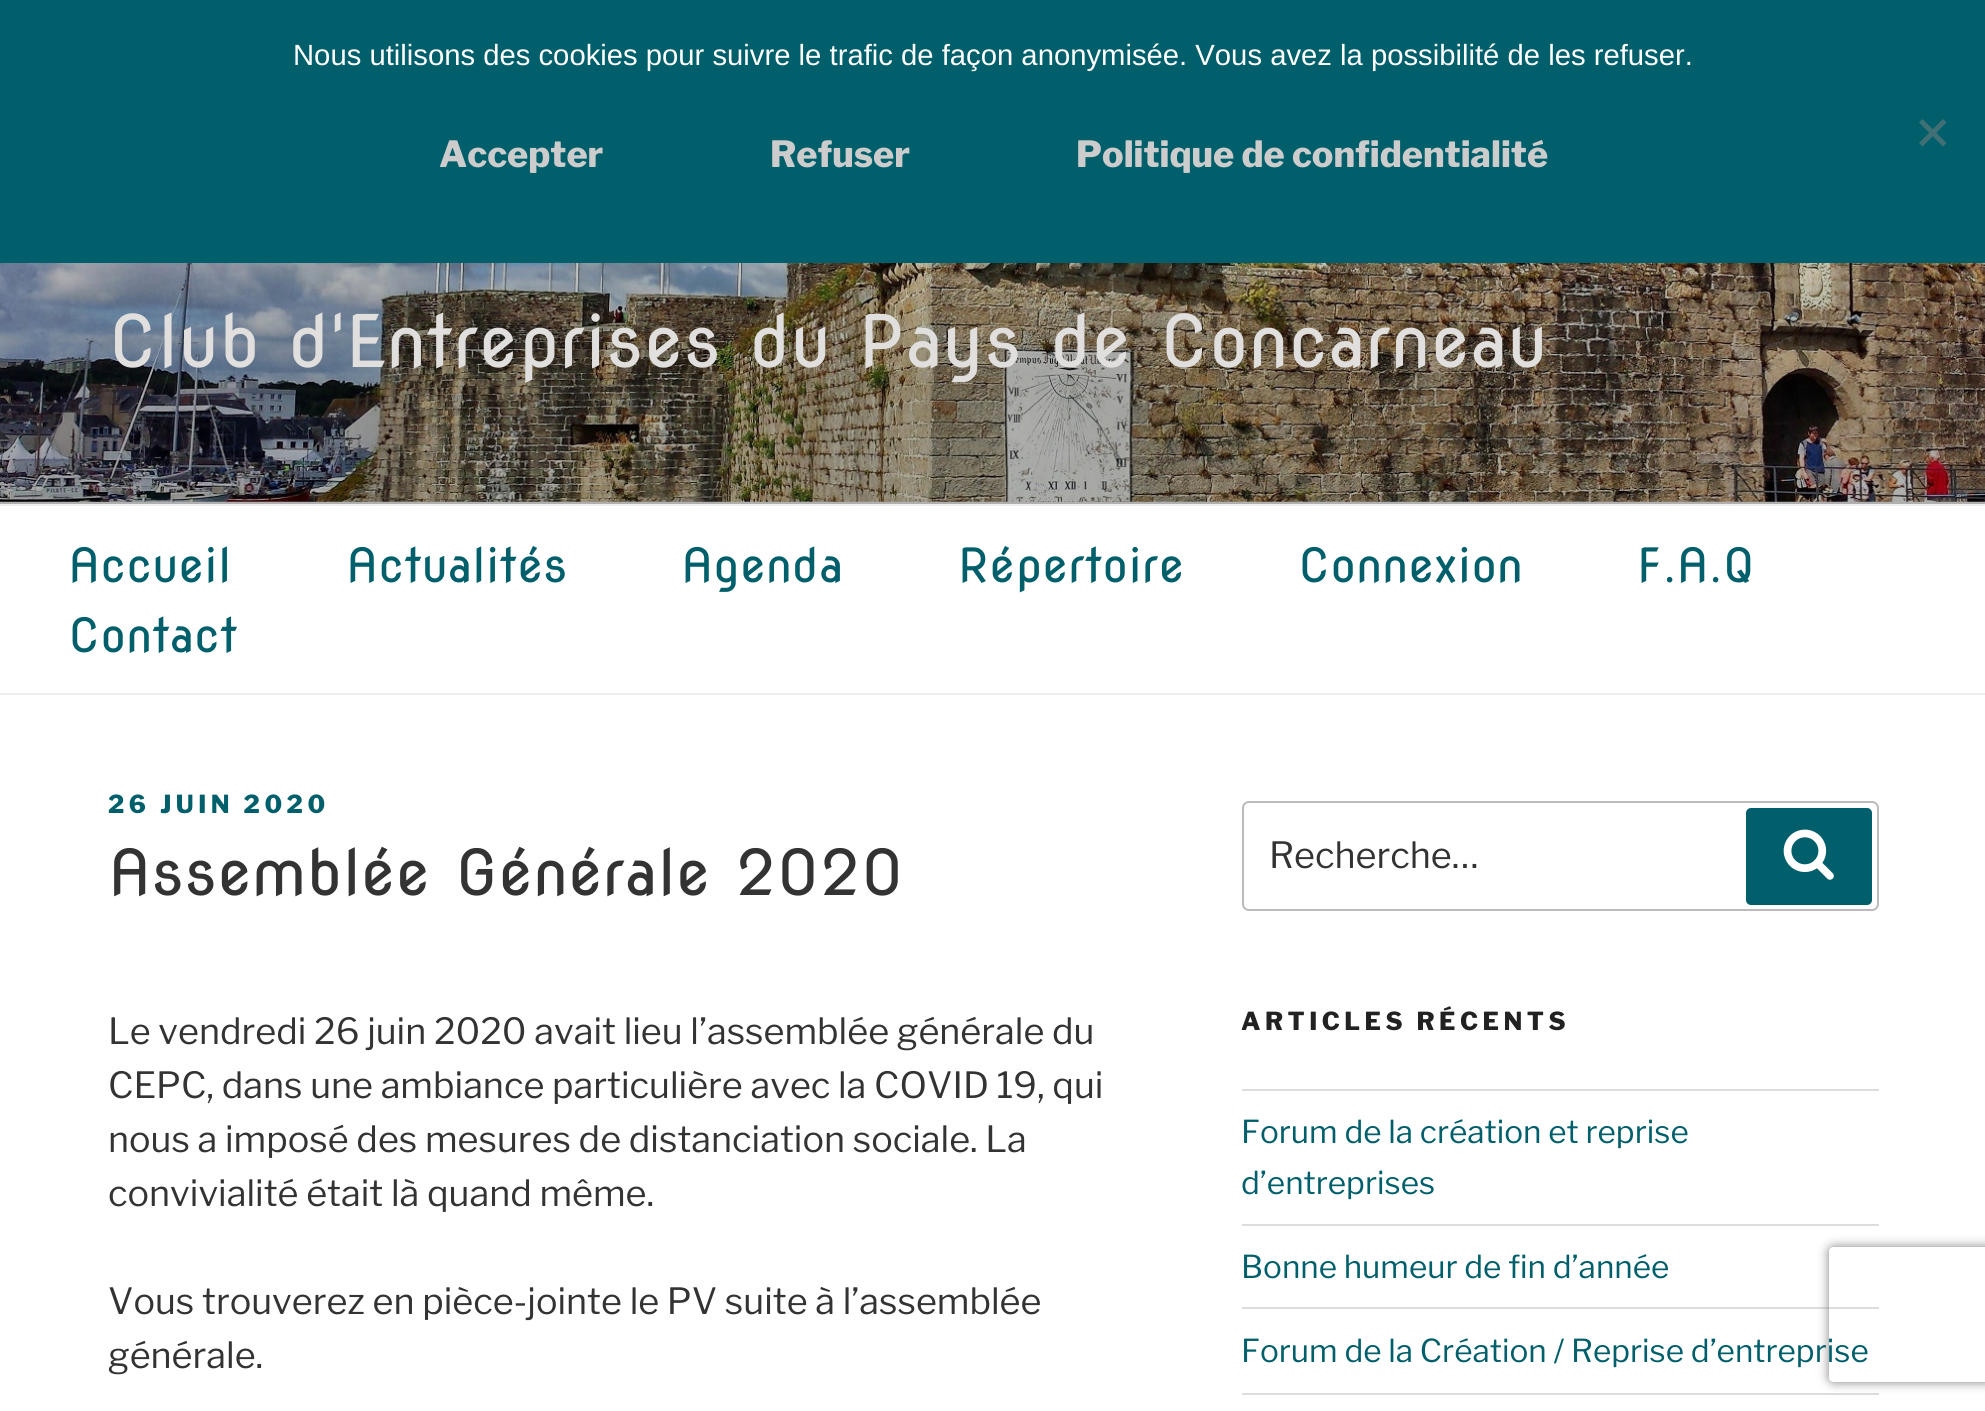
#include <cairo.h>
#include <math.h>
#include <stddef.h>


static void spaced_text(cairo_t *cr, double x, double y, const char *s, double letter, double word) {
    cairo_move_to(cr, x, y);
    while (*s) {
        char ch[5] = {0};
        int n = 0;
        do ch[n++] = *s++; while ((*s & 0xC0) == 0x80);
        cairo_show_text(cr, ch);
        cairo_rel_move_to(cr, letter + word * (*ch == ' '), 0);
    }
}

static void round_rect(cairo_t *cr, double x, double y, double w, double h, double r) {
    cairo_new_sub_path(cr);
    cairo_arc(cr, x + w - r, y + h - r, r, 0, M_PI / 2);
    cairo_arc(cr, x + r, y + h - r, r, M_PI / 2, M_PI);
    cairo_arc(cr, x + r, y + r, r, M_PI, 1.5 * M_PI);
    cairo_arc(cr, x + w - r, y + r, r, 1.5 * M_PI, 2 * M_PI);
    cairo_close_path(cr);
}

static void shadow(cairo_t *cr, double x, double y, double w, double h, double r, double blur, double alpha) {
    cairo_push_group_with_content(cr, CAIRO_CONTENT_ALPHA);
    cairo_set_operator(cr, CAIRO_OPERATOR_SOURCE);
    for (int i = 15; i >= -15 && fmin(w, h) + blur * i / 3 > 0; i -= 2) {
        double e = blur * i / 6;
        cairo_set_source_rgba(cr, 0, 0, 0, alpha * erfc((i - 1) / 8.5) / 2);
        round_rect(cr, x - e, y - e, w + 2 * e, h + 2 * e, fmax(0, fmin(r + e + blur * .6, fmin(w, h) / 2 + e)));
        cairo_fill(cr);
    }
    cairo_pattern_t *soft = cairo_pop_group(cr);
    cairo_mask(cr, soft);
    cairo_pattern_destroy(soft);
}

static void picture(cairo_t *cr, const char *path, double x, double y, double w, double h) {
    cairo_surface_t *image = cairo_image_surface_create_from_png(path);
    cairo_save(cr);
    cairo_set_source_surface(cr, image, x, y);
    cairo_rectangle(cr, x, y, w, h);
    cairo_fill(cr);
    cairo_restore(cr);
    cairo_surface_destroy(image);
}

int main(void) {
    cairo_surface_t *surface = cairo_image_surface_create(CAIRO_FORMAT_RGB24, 1985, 1411);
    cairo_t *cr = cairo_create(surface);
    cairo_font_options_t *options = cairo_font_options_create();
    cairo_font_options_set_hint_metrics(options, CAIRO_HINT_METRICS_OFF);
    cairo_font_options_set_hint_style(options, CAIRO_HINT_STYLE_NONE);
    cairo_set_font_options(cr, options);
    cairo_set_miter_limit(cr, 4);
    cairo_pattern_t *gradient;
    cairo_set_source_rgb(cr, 1, 1, 1);
    cairo_paint(cr);
    cairo_set_source_rgb(cr, 0, 0.373, 0.42);
    cairo_rectangle(cr, 0, 0, 1985, 263);
    cairo_fill(cr);
    cairo_select_font_face(cr, "Liberation Sans", CAIRO_FONT_SLANT_NORMAL, CAIRO_FONT_WEIGHT_NORMAL);
    cairo_set_font_size(cr, 29.25);
    cairo_set_source_rgb(cr, 1, 1, 1);
    cairo_move_to(cr, 293, 65);
    cairo_show_text(cr, "Nous utilisons des cookies pour suivre le trafic de façon anonymisée. Vous avez la possibilité de les refuser.");
    cairo_set_source_rgb(cr, 0.251, 0.439, 0.463);
    cairo_new_path(cr);
    cairo_move_to(cr, 1943, 119);
    cairo_line_to(cr, 1946.5, 122.5);
    cairo_line_to(cr, 1922.5, 146.5);
    cairo_line_to(cr, 1919, 143);
    cairo_close_path(cr);
    cairo_fill(cr);
    cairo_new_path(cr);
    cairo_move_to(cr, 1919, 122.5);
    cairo_line_to(cr, 1922.5, 119);
    cairo_line_to(cr, 1946.5, 143);
    cairo_line_to(cr, 1943, 146.5);
    cairo_close_path(cr);
    cairo_fill(cr);
    cairo_select_font_face(cr, "Libre Franklin Thin", CAIRO_FONT_SLANT_NORMAL, CAIRO_FONT_WEIGHT_NORMAL);
    cairo_set_font_size(cr, 36);
    cairo_set_source_rgb(cr, 0.8, 0.8, 0.8);
    cairo_move_to(cr, 439, 167);
    cairo_show_text(cr, "Accepter");
    cairo_move_to(cr, 770, 167);
    cairo_show_text(cr, "Refuser");
    cairo_move_to(cr, 1076, 167);
    cairo_show_text(cr, "Politique de confidentialité");
    cairo_set_source_rgb(cr, 0.98, 0.98, 0.98);
    cairo_rectangle(cr, 0, 501, 1985, 3);
    cairo_fill(cr);
    picture(cr, "img1.png", 0, 263, 1985, 239);
    gradient = cairo_pattern_create_linear(993, 0, 993, 504);
    cairo_pattern_add_color_stop_rgba(gradient, 0, 0, 0, 0, 0);
    cairo_pattern_add_color_stop_rgba(gradient, 0.75, 0, 0, 0, 0.3);
    cairo_pattern_add_color_stop_rgba(gradient, 1, 0, 0, 0, 0.3);
    cairo_set_source(cr, gradient);
    cairo_pattern_destroy(gradient);
    cairo_rectangle(cr, 0, 263, 1985, 241);
    cairo_fill(cr);
    cairo_select_font_face(cr, "Nova Round", CAIRO_FONT_SLANT_NORMAL, CAIRO_FONT_WEIGHT_NORMAL);
    cairo_set_font_size(cr, 72);
    cairo_set_source_rgb(cr, 0.878, 0.875, 0.867);
    cairo_move_to(cr, 108, 367);
    cairo_show_text(cr, "Club d'Entreprises du Pays de Concarneau");
    cairo_set_source_rgb(cr, 0.933, 0.933, 0.933);
    cairo_rectangle(cr, 0, 504, 1985, 2);
    cairo_fill(cr);
    cairo_rectangle(cr, 0, 693, 1985, 2);
    cairo_fill(cr);
    cairo_set_font_size(cr, 47);
    cairo_set_source_rgb(cr, 0, 0.373, 0.42);
    cairo_move_to(cr, 68, 582);
    cairo_show_text(cr, "Accueil");
    cairo_move_to(cr, 346, 582);
    cairo_show_text(cr, "Actualités");
    cairo_move_to(cr, 681, 582);
    cairo_show_text(cr, "Agenda");
    cairo_move_to(cr, 958, 582);
    cairo_show_text(cr, "Répertoire");
    cairo_move_to(cr, 1298, 582);
    cairo_show_text(cr, "Connexion");
    cairo_move_to(cr, 1637, 582);
    cairo_show_text(cr, "F.A.Q");
    cairo_move_to(cr, 68, 652);
    cairo_show_text(cr, "Contact");
    cairo_select_font_face(cr, "Libre Franklin Thin", CAIRO_FONT_SLANT_NORMAL, CAIRO_FONT_WEIGHT_NORMAL);
    cairo_set_font_size(cr, 24.75);
    spaced_text(cr, 108, 813, "26 JUIN 2020", 4.5, 0);
    cairo_select_font_face(cr, "Nova Round", CAIRO_FONT_SLANT_NORMAL, CAIRO_FONT_WEIGHT_NORMAL);
    cairo_set_font_size(cr, 63);
    cairo_set_source_rgb(cr, 0.2, 0.2, 0.2);
    cairo_move_to(cr, 108, 895);
    cairo_show_text(cr, "Assemblée Générale 2020");
    cairo_select_font_face(cr, "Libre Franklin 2 Thin", CAIRO_FONT_SLANT_NORMAL, CAIRO_FONT_WEIGHT_NORMAL);
    cairo_set_font_size(cr, 36);
    cairo_move_to(cr, 108, 1044);
    cairo_show_text(cr, "Le vendredi 26 juin 2020 avait lieu l’assemblée générale du");
    cairo_move_to(cr, 108, 1098);
    cairo_show_text(cr, "CEPC, dans une ambiance particulière avec la COVID 19, qui");
    cairo_move_to(cr, 108, 1152);
    cairo_show_text(cr, "nous a imposé des mesures de distanciation sociale. La");
    cairo_move_to(cr, 108, 1206);
    cairo_show_text(cr, "convivialité était là quand même.");
    cairo_move_to(cr, 108, 1314);
    cairo_show_text(cr, "Vous trouverez en pièce-jointe le PV suite à l’assemblée");
    cairo_move_to(cr, 108, 1368);
    cairo_show_text(cr, "générale.");
    round_rect(cr, 1243, 802, 635, 108, 6);
    cairo_set_source_rgb(cr, 0.733, 0.733, 0.733);
    cairo_stroke(cr);
    cairo_set_source_rgb(cr, 0.2, 0.2, 0.2);
    cairo_move_to(cr, 1269, 868);
    cairo_show_text(cr, "Recherche…");
    cairo_set_source_rgb(cr, 0, 0.373, 0.42);
    round_rect(cr, 1746, 808, 126, 97, 5);
    cairo_fill(cr);
    picture(cr, "img2.png", 1783, 829, 51, 51);
    cairo_select_font_face(cr, "Libre Franklin Thin", CAIRO_FONT_SLANT_NORMAL, CAIRO_FONT_WEIGHT_NORMAL);
    cairo_set_font_size(cr, 24.75);
    cairo_set_source_rgb(cr, 0.133, 0.133, 0.133);
    spaced_text(cr, 1241, 1030, "ARTICLES RÉCENTS", 4.5, 0);
    cairo_set_source_rgb(cr, 0.867, 0.867, 0.867);
    cairo_rectangle(cr, 1242, 1089, 637, 2);
    cairo_fill(cr);
    cairo_rectangle(cr, 1242, 1224, 637, 2);
    cairo_fill(cr);
    cairo_select_font_face(cr, "Libre Franklin 2 Thin", CAIRO_FONT_SLANT_NORMAL, CAIRO_FONT_WEIGHT_NORMAL);
    cairo_set_font_size(cr, 31.5);
    cairo_set_source_rgb(cr, 0, 0.373, 0.42);
    cairo_move_to(cr, 1241, 1143);
    cairo_show_text(cr, "Forum de la création et reprise");
    cairo_move_to(cr, 1241, 1194);
    cairo_show_text(cr, "d’entreprises");
    cairo_set_source_rgb(cr, 0.867, 0.867, 0.867);
    cairo_rectangle(cr, 1242, 1307, 637, 2);
    cairo_fill(cr);
    cairo_set_source_rgb(cr, 0, 0.373, 0.42);
    cairo_move_to(cr, 1241, 1278);
    cairo_show_text(cr, "Bonne humeur de fin d’année");
    cairo_set_source_rgb(cr, 0.867, 0.867, 0.867);
    cairo_rectangle(cr, 1242, 1393, 637, 2);
    cairo_fill(cr);
    cairo_set_source_rgb(cr, 0, 0.373, 0.42);
    cairo_move_to(cr, 1241, 1362);
    cairo_show_text(cr, "Forum de la Création / Reprise d’entreprise");
    cairo_save(cr);
    cairo_set_fill_rule(cr, CAIRO_FILL_RULE_EVEN_ODD);
    cairo_new_path(cr);
    cairo_move_to(cr, 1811, 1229);
    cairo_line_to(cr, 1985, 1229);
    cairo_line_to(cr, 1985, 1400);
    cairo_line_to(cr, 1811, 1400);
    cairo_close_path(cr);
    cairo_move_to(cr, 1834, 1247);
    cairo_line_to(cr, 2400, 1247);
    cairo_curve_to(cr, 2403, 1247, 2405, 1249, 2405, 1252);
    cairo_line_to(cr, 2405, 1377);
    cairo_curve_to(cr, 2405, 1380, 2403, 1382, 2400, 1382);
    cairo_line_to(cr, 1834, 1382);
    cairo_curve_to(cr, 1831, 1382, 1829, 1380, 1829, 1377);
    cairo_line_to(cr, 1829, 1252);
    cairo_curve_to(cr, 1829, 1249, 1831, 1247, 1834, 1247);
    cairo_close_path(cr);
    cairo_clip(cr);
    cairo_set_source_rgb(cr, 0.502, 0.502, 0.502);
    shadow(cr, 1829, 1247, 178, 135, 5, 5.5, 1);
    cairo_restore(cr);
    cairo_surface_write_to_png(surface, "page.png");
    cairo_font_options_destroy(options);
    cairo_destroy(cr);
    cairo_surface_destroy(surface);
    return 0;
}
